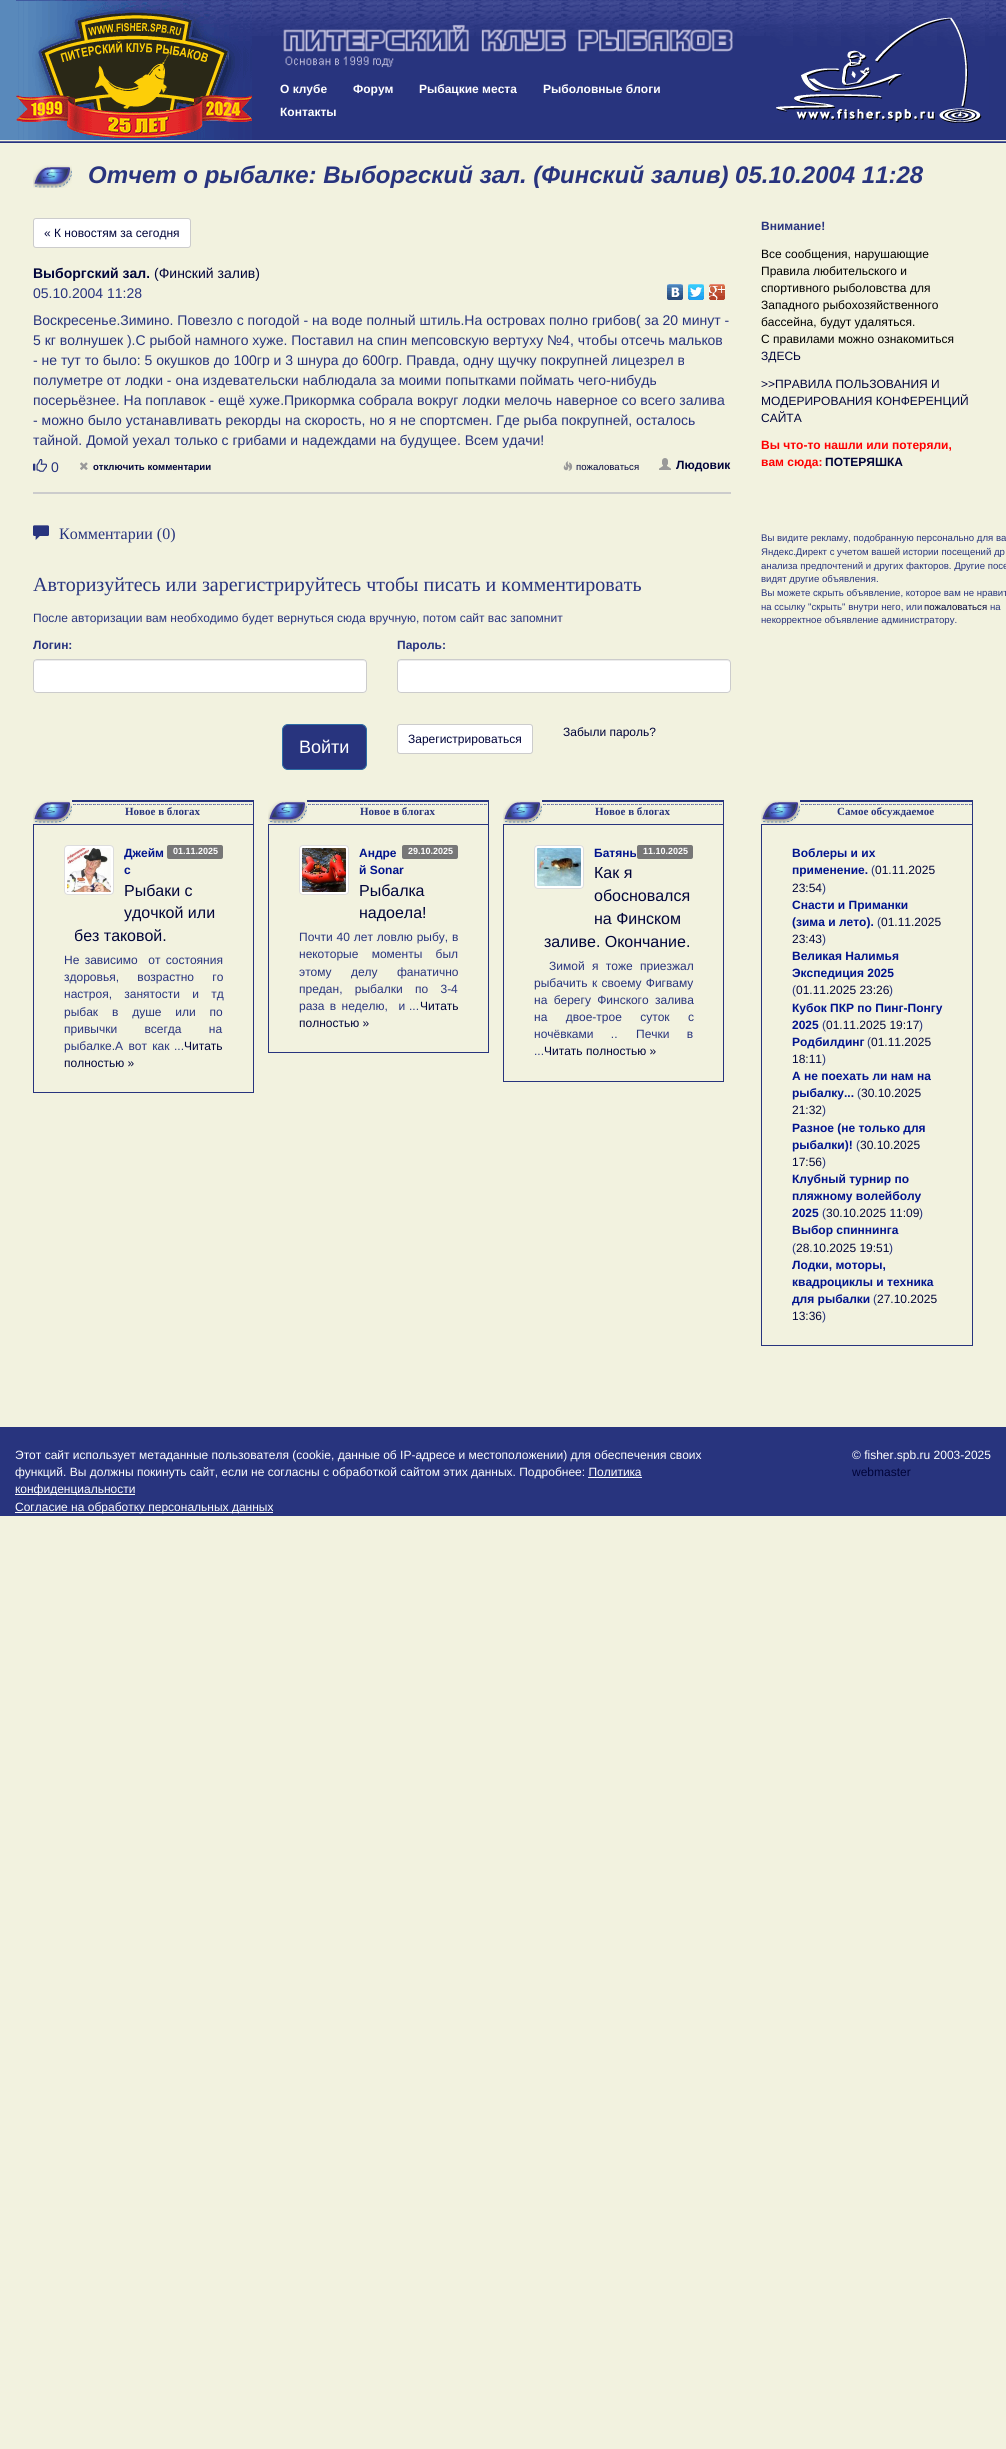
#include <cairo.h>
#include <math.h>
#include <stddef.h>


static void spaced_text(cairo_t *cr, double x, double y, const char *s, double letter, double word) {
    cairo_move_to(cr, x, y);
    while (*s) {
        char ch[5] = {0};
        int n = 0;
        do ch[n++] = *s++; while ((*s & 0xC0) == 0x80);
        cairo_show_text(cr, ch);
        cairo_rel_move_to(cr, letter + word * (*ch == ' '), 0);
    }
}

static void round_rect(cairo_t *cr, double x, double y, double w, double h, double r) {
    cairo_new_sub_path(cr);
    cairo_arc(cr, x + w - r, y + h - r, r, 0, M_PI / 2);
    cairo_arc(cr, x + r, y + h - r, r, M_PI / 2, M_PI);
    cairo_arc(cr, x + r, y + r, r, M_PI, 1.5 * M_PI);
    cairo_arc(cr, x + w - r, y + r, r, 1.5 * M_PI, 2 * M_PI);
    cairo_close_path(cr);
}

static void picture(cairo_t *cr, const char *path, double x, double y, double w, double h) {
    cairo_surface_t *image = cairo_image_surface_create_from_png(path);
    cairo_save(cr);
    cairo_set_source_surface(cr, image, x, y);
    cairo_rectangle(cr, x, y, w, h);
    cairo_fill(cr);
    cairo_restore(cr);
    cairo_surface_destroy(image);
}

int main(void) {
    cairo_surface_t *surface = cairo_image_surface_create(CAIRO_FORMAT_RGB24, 1006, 2449);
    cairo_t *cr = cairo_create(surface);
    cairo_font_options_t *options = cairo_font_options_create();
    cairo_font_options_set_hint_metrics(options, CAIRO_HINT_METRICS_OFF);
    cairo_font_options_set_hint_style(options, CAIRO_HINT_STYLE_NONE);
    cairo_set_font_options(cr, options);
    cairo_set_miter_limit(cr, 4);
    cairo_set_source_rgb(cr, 0.949, 0.949, 0.875);
    cairo_paint(cr);
    picture(cr, "img1.png", 0, 141, 1006, 2);
    cairo_set_source_rgb(cr, 0.157, 0.204, 0.494);
    cairo_rectangle(cr, 252, 3, 754, 137);
    cairo_fill(cr);
    picture(cr, "img2.png", 252, 0, 754, 36);
    cairo_set_source_rgb(cr, 0.349, 0.537, 0.733);
    cairo_rectangle(cr, 0, 0, 16, 140);
    cairo_fill(cr);
    picture(cr, "img3.png", 16, 0, 236, 140);
    picture(cr, "img4.png", 283, 24, 450, 44);
    cairo_select_font_face(cr, "Liberation Sans", CAIRO_FONT_SLANT_NORMAL, CAIRO_FONT_WEIGHT_BOLD);
    cairo_set_font_size(cr, 12);
    cairo_set_source_rgb(cr, 1, 1, 1);
    cairo_move_to(cr, 280, 93);
    cairo_show_text(cr, "О клубе");
    cairo_move_to(cr, 353, 93);
    cairo_show_text(cr, "Форум");
    cairo_move_to(cr, 419, 93);
    cairo_show_text(cr, "Рыбацкие места");
    cairo_move_to(cr, 543, 93);
    cairo_show_text(cr, "Рыболовные блоги");
    cairo_move_to(cr, 280, 116);
    cairo_show_text(cr, "Контакты");
    picture(cr, "img5.png", 770, 0, 219, 123);
    picture(cr, "img6.png", 33, 165, 39, 23);
    cairo_select_font_face(cr, "Liberation Sans", CAIRO_FONT_SLANT_ITALIC, CAIRO_FONT_WEIGHT_BOLD);
    cairo_set_font_size(cr, 24);
    cairo_set_source_rgb(cr, 0.157, 0.204, 0.494);
    cairo_move_to(cr, 88, 183);
    cairo_show_text(cr, "Отчет о рыбалке: Выборгский зал. (Финский залив) 05.10.2004 11:28");
    cairo_set_source_rgb(cr, 1, 1, 1);
    round_rect(cr, 33.5, 218.5, 157, 29, 2.5);
    cairo_fill_preserve(cr);
    cairo_set_source_rgb(cr, 0.8, 0.8, 0.8);
    cairo_set_line_width(cr, 1);
    cairo_stroke(cr);
    cairo_select_font_face(cr, "Liberation Sans", CAIRO_FONT_SLANT_NORMAL, CAIRO_FONT_WEIGHT_NORMAL);
    cairo_set_font_size(cr, 12);
    cairo_set_source_rgb(cr, 0, 0.016, 0.227);
    cairo_move_to(cr, 44, 237);
    cairo_show_text(cr, "« К новостям за сегодня");
    cairo_set_source_rgb(cr, 0.8, 0.8, 0.8);
    cairo_rectangle(cr, 33, 492, 698, 2);
    cairo_fill(cr);
    cairo_select_font_face(cr, "Liberation Sans", CAIRO_FONT_SLANT_NORMAL, CAIRO_FONT_WEIGHT_BOLD);
    cairo_set_font_size(cr, 14);
    cairo_set_source_rgb(cr, 0, 0.016, 0.227);
    cairo_move_to(cr, 33, 278);
    cairo_show_text(cr, "Выборгский зал.");
    cairo_select_font_face(cr, "Liberation Sans", CAIRO_FONT_SLANT_NORMAL, CAIRO_FONT_WEIGHT_NORMAL);
    cairo_move_to(cr, 154, 278);
    cairo_show_text(cr, "(Финский залив)");
    cairo_set_source_rgb(cr, 0.157, 0.204, 0.494);
    cairo_move_to(cr, 33, 298);
    cairo_show_text(cr, "05.10.2004 11:28");
    picture(cr, "img7.png", 667, 284, 16, 16);
    picture(cr, "img8.png", 688, 284, 16, 16);
    picture(cr, "img9.png", 709, 284, 16, 16);
    cairo_move_to(cr, 33, 325);
    cairo_show_text(cr, "Воскресенье.Зимино. Повезло с погодой - на воде полный штиль.На островах полно грибов( за 20 минут -");
    cairo_move_to(cr, 33, 345);
    cairo_show_text(cr, "5 кг волнушек ).С рыбой намного хуже. Поставил на спин мепсовскую вертуху №4, чтобы отсечь мальков");
    cairo_move_to(cr, 33, 365);
    cairo_show_text(cr, "- не тут то было: 5 окушков до 100гр и 3 шнура до 600гр. Правда, одну щучку покрупней лицезрел в");
    cairo_move_to(cr, 33, 385);
    cairo_show_text(cr, "полуметре от лодки - она издевательски наблюдала за моими попытками поймать чего-нибудь");
    cairo_move_to(cr, 33, 405);
    cairo_show_text(cr, "посерьёзнее. На поплавок - ещё хуже.Прикормка собрала вокруг лодки мелочь наверное со всего залива");
    cairo_move_to(cr, 33, 425);
    cairo_show_text(cr, "- можно было устанавливать рекорды на скорость, но я не спортсмен. Где рыба покрупней, осталось");
    cairo_move_to(cr, 33, 445);
    cairo_show_text(cr, "тайной. Домой уехал только с грибами и надеждами на будущее. Всем удачи!");
    picture(cr, "img10.png", 33, 459, 14, 13);
    cairo_move_to(cr, 51, 472);
    cairo_show_text(cr, "0");
    picture(cr, "img11.png", 80, 462, 8, 8);
    cairo_select_font_face(cr, "Liberation Sans", CAIRO_FONT_SLANT_NORMAL, CAIRO_FONT_WEIGHT_BOLD);
    cairo_set_font_size(cr, 9.6);
    cairo_set_source_rgb(cr, 0, 0.016, 0.227);
    cairo_move_to(cr, 93, 470);
    cairo_show_text(cr, "отключить комментарии");
    picture(cr, "img12.png", 563, 461, 10, 10);
    cairo_select_font_face(cr, "Liberation Sans", CAIRO_FONT_SLANT_NORMAL, CAIRO_FONT_WEIGHT_NORMAL);
    cairo_move_to(cr, 576, 470);
    cairo_show_text(cr, "пожаловаться");
    picture(cr, "img13.png", 659, 458, 12, 12);
    cairo_select_font_face(cr, "Liberation Sans", CAIRO_FONT_SLANT_NORMAL, CAIRO_FONT_WEIGHT_BOLD);
    cairo_set_font_size(cr, 12);
    cairo_move_to(cr, 676, 469);
    cairo_show_text(cr, "Людовик");
    picture(cr, "img14.png", 33, 525, 16, 15);
    cairo_select_font_face(cr, "Liberation Serif", CAIRO_FONT_SLANT_NORMAL, CAIRO_FONT_WEIGHT_NORMAL);
    cairo_set_font_size(cr, 16);
    cairo_set_source_rgb(cr, 0.157, 0.204, 0.494);
    cairo_move_to(cr, 59, 539);
    cairo_show_text(cr, "Комментарии (0)");
    cairo_set_font_size(cr, 20);
    cairo_move_to(cr, 33, 591);
    cairo_show_text(cr, "Авторизуйтесь или зарегистрируйтесь чтобы писать и комментировать");
    cairo_select_font_face(cr, "Liberation Sans", CAIRO_FONT_SLANT_NORMAL, CAIRO_FONT_WEIGHT_NORMAL);
    cairo_set_font_size(cr, 12);
    cairo_move_to(cr, 33, 622);
    cairo_show_text(cr, "После авторизации вам необходимо будет вернуться сюда вручную, потом сайт вас запомнит");
    cairo_select_font_face(cr, "Liberation Sans", CAIRO_FONT_SLANT_NORMAL, CAIRO_FONT_WEIGHT_BOLD);
    cairo_move_to(cr, 33, 649);
    cairo_show_text(cr, "Логин:");
    cairo_set_source_rgb(cr, 1, 1, 1);
    round_rect(cr, 33, 659, 334, 34, 4);
    cairo_fill(cr);
    cairo_set_source_rgb(cr, 0.925, 0.925, 0.925);
    cairo_new_path(cr);
    cairo_move_to(cr, 37, 661);
    cairo_line_to(cr, 363, 661);
    cairo_curve_to(cr, 365, 661, 366, 662, 366, 664);
    cairo_curve_to(cr, 366, 662, 365, 660, 363, 660);
    cairo_line_to(cr, 37, 660);
    cairo_curve_to(cr, 35, 660, 34, 662, 34, 664);
    cairo_curve_to(cr, 34, 662, 35, 661, 37, 661);
    cairo_close_path(cr);
    cairo_fill(cr);
    round_rect(cr, 33.5, 659.5, 333, 33, 3.5);
    cairo_set_source_rgb(cr, 0.8, 0.8, 0.8);
    cairo_stroke(cr);
    cairo_set_source_rgb(cr, 0.157, 0.204, 0.494);
    cairo_move_to(cr, 397, 649);
    cairo_show_text(cr, "Пароль:");
    cairo_set_source_rgb(cr, 1, 1, 1);
    round_rect(cr, 397, 659, 334, 34, 4);
    cairo_fill(cr);
    cairo_set_source_rgb(cr, 0.925, 0.925, 0.925);
    cairo_new_path(cr);
    cairo_move_to(cr, 401, 661);
    cairo_line_to(cr, 727, 661);
    cairo_curve_to(cr, 729, 661, 730, 662, 730, 664);
    cairo_curve_to(cr, 730, 662, 729, 660, 727, 660);
    cairo_line_to(cr, 401, 660);
    cairo_curve_to(cr, 399, 660, 398, 662, 398, 664);
    cairo_curve_to(cr, 398, 662, 399, 661, 401, 661);
    cairo_close_path(cr);
    cairo_fill(cr);
    round_rect(cr, 397.5, 659.5, 333, 33, 3.5);
    cairo_set_source_rgb(cr, 0.8, 0.8, 0.8);
    cairo_stroke(cr);
    cairo_set_source_rgb(cr, 0.157, 0.204, 0.494);
    round_rect(cr, 282.5, 724.5, 84, 45, 5.5);
    cairo_fill_preserve(cr);
    cairo_set_source_rgb(cr, 0.18, 0.427, 0.643);
    cairo_stroke(cr);
    cairo_select_font_face(cr, "Liberation Sans", CAIRO_FONT_SLANT_NORMAL, CAIRO_FONT_WEIGHT_NORMAL);
    cairo_set_font_size(cr, 18);
    cairo_set_source_rgb(cr, 1, 1, 1);
    cairo_move_to(cr, 299, 753);
    cairo_show_text(cr, "Войти");
    round_rect(cr, 397.5, 724.5, 135, 29, 2.5);
    cairo_fill_preserve(cr);
    cairo_set_source_rgb(cr, 0.8, 0.8, 0.8);
    cairo_stroke(cr);
    cairo_set_font_size(cr, 12);
    cairo_set_source_rgb(cr, 0, 0.016, 0.227);
    cairo_move_to(cr, 408, 743);
    cairo_show_text(cr, "Зарегистрироваться");
    cairo_move_to(cr, 563, 736);
    cairo_show_text(cr, "Забыли пароль?");
    cairo_select_font_face(cr, "Liberation Sans", CAIRO_FONT_SLANT_NORMAL, CAIRO_FONT_WEIGHT_BOLD);
    cairo_set_source_rgb(cr, 0.157, 0.204, 0.494);
    cairo_move_to(cr, 761, 230);
    cairo_show_text(cr, "Внимание!");
    cairo_select_font_face(cr, "Liberation Sans", CAIRO_FONT_SLANT_NORMAL, CAIRO_FONT_WEIGHT_NORMAL);
    cairo_set_source_rgb(cr, 0, 0, 0);
    cairo_move_to(cr, 761, 258);
    cairo_show_text(cr, "Все сообщения, нарушающие");
    cairo_move_to(cr, 761, 275);
    cairo_show_text(cr, "Правила любительского и");
    cairo_move_to(cr, 761, 292);
    cairo_show_text(cr, "спортивного рыболовства для");
    cairo_move_to(cr, 761, 309);
    cairo_show_text(cr, "Западного рыбохозяйственного");
    cairo_move_to(cr, 761, 326);
    cairo_show_text(cr, "бассейна, будут удаляться.");
    cairo_move_to(cr, 761, 343);
    cairo_show_text(cr, "С правилами можно ознакомиться");
    cairo_set_source_rgb(cr, 0, 0.016, 0.227);
    cairo_move_to(cr, 761, 360);
    cairo_show_text(cr, "ЗДЕСЬ");
    cairo_move_to(cr, 761, 388);
    cairo_show_text(cr, ">>ПРАВИЛА ПОЛЬЗОВАНИЯ И");
    cairo_move_to(cr, 761, 405);
    cairo_show_text(cr, "МОДЕРИРОВАНИЯ КОНФЕРЕНЦИЙ");
    cairo_move_to(cr, 761, 422);
    cairo_show_text(cr, "САЙТА");
    cairo_select_font_face(cr, "Liberation Sans", CAIRO_FONT_SLANT_NORMAL, CAIRO_FONT_WEIGHT_BOLD);
    cairo_set_source_rgb(cr, 1, 0, 0);
    cairo_move_to(cr, 761, 449);
    cairo_show_text(cr, "Вы что-то нашли или потеряли,");
    cairo_move_to(cr, 761, 466);
    cairo_show_text(cr, "вам сюда:");
    cairo_set_source_rgb(cr, 0, 0.016, 0.227);
    cairo_move_to(cr, 825, 466);
    cairo_show_text(cr, "ПОТЕРЯШКА");
    cairo_select_font_face(cr, "Liberation Sans", CAIRO_FONT_SLANT_NORMAL, CAIRO_FONT_WEIGHT_NORMAL);
    cairo_set_font_size(cr, 9.6);
    cairo_set_source_rgb(cr, 0.157, 0.204, 0.494);
    cairo_move_to(cr, 761, 541);
    cairo_show_text(cr, "Вы видите рекламу, подобранную персонально для ва");
    cairo_move_to(cr, 761, 555);
    cairo_show_text(cr, "Яндекс.Директ с учетом вашей истории посещений др");
    cairo_move_to(cr, 761, 569);
    cairo_show_text(cr, "анализа предпочтений и других факторов. Другие посе");
    cairo_move_to(cr, 761, 582);
    cairo_show_text(cr, "видят другие объявления.");
    cairo_move_to(cr, 761, 596);
    cairo_show_text(cr, "Вы можете скрыть объявление, которое вам не нравит");
    cairo_move_to(cr, 761, 610);
    cairo_show_text(cr, "на ссылку \"скрыть\" внутри него, или");
    cairo_set_source_rgb(cr, 0, 0.016, 0.227);
    cairo_move_to(cr, 924, 610);
    cairo_show_text(cr, "пожаловаться");
    cairo_set_source_rgb(cr, 0.157, 0.204, 0.494);
    cairo_move_to(cr, 990, 610);
    cairo_show_text(cr, "на");
    cairo_move_to(cr, 761, 623);
    cairo_show_text(cr, "некорректное объявление администратору.");
    cairo_rectangle(cr, 253, 800, 1, 293);
    cairo_fill(cr);
    picture(cr, "img15.png", 33, 800, 39, 24);
    picture(cr, "img16.png", 72, 800, 181, 5);
    cairo_select_font_face(cr, "Liberation Serif", CAIRO_FONT_SLANT_NORMAL, CAIRO_FONT_WEIGHT_BOLD);
    cairo_set_font_size(cr, 11);
    cairo_move_to(cr, 125, 815);
    cairo_show_text(cr, "Новое в блогах");
    cairo_rectangle(cr, 33, 824, 220, 1);
    cairo_fill(cr);
    cairo_rectangle(cr, 33, 1092, 220, 1);
    cairo_fill(cr);
    cairo_rectangle(cr, 33, 824, 1, 269);
    cairo_fill(cr);
    cairo_set_source_rgb(cr, 1, 1, 1);
    round_rect(cr, 64.5, 845.5, 49, 49, 3.5);
    cairo_fill_preserve(cr);
    cairo_set_source_rgb(cr, 0.867, 0.867, 0.867);
    cairo_stroke(cr);
    picture(cr, "img17.png", 67, 848, 44, 44);
    cairo_select_font_face(cr, "Liberation Sans", CAIRO_FONT_SLANT_NORMAL, CAIRO_FONT_WEIGHT_BOLD);
    cairo_set_font_size(cr, 12);
    cairo_set_source_rgb(cr, 0, 0.075, 0.553);
    cairo_move_to(cr, 124, 857);
    cairo_show_text(cr, "Джейм");
    cairo_move_to(cr, 124, 874);
    cairo_show_text(cr, "с");
    cairo_set_source_rgb(cr, 0.467, 0.467, 0.467);
    round_rect(cr, 167, 845, 56, 14, 2);
    cairo_fill(cr);
    cairo_set_font_size(cr, 9);
    cairo_set_source_rgb(cr, 1, 1, 1);
    cairo_move_to(cr, 173, 854);
    cairo_show_text(cr, "01.11.2025");
    cairo_select_font_face(cr, "Liberation Sans", CAIRO_FONT_SLANT_NORMAL, CAIRO_FONT_WEIGHT_NORMAL);
    cairo_set_font_size(cr, 16);
    cairo_set_source_rgb(cr, 0, 0.016, 0.227);
    cairo_move_to(cr, 124, 896);
    cairo_show_text(cr, "Рыбаки с");
    cairo_move_to(cr, 124, 918);
    cairo_show_text(cr, "удочкой или");
    cairo_move_to(cr, 74, 941);
    cairo_show_text(cr, "без таковой.");
    cairo_set_font_size(cr, 12);
    cairo_set_source_rgb(cr, 0.157, 0.204, 0.494);
    spaced_text(cr, 64, 964, "Не зависимо  от состояния", 0, 2);
    spaced_text(cr, 64, 981, "здоровья, возрастно го", 0, 15);
    spaced_text(cr, 64, 998, "настроя, занятости и тд", 0, 9);
    spaced_text(cr, 64, 1016, "рыбак в душе или по", 0, 10.5);
    spaced_text(cr, 64, 1033, "привычки всегда на", 0, 24);
    spaced_text(cr, 64, 1050, "рыбалке.А вот как", 0, 2);
    cairo_move_to(cr, 174, 1050);
    cairo_show_text(cr, "...");
    cairo_set_source_rgb(cr, 0, 0.016, 0.227);
    cairo_move_to(cr, 184, 1050);
    cairo_show_text(cr, "Читать");
    cairo_move_to(cr, 64, 1067);
    cairo_show_text(cr, "полностью »");
    cairo_set_source_rgb(cr, 0.157, 0.204, 0.494);
    cairo_rectangle(cr, 488, 800, 1, 253);
    cairo_fill(cr);
    picture(cr, "img15.png", 268, 800, 39, 24);
    picture(cr, "img16.png", 307, 800, 181, 5);
    cairo_select_font_face(cr, "Liberation Serif", CAIRO_FONT_SLANT_NORMAL, CAIRO_FONT_WEIGHT_BOLD);
    cairo_set_font_size(cr, 11);
    cairo_move_to(cr, 360, 815);
    cairo_show_text(cr, "Новое в блогах");
    cairo_rectangle(cr, 268, 824, 220, 1);
    cairo_fill(cr);
    cairo_rectangle(cr, 268, 1052, 220, 1);
    cairo_fill(cr);
    cairo_rectangle(cr, 268, 824, 1, 229);
    cairo_fill(cr);
    cairo_set_source_rgb(cr, 1, 1, 1);
    round_rect(cr, 299.5, 845.5, 49, 49, 3.5);
    cairo_fill_preserve(cr);
    cairo_set_source_rgb(cr, 0.867, 0.867, 0.867);
    cairo_stroke(cr);
    picture(cr, "img18.png", 302, 848, 44, 44);
    cairo_select_font_face(cr, "Liberation Sans", CAIRO_FONT_SLANT_NORMAL, CAIRO_FONT_WEIGHT_BOLD);
    cairo_set_font_size(cr, 12);
    cairo_set_source_rgb(cr, 0, 0.075, 0.553);
    cairo_move_to(cr, 359, 857);
    cairo_show_text(cr, "Андре");
    cairo_move_to(cr, 359, 874);
    cairo_show_text(cr, "й Sonar");
    cairo_set_source_rgb(cr, 0.467, 0.467, 0.467);
    round_rect(cr, 402, 845, 56, 14, 2);
    cairo_fill(cr);
    cairo_set_font_size(cr, 9);
    cairo_set_source_rgb(cr, 1, 1, 1);
    cairo_move_to(cr, 408, 854);
    cairo_show_text(cr, "29.10.2025");
    cairo_select_font_face(cr, "Liberation Sans", CAIRO_FONT_SLANT_NORMAL, CAIRO_FONT_WEIGHT_NORMAL);
    cairo_set_font_size(cr, 16);
    cairo_set_source_rgb(cr, 0, 0.016, 0.227);
    cairo_move_to(cr, 359, 896);
    cairo_show_text(cr, "Рыбалка");
    cairo_move_to(cr, 359, 918);
    cairo_show_text(cr, "надоела!");
    cairo_set_font_size(cr, 12);
    cairo_set_source_rgb(cr, 0.157, 0.204, 0.494);
    spaced_text(cr, 299, 941, "Почти 40 лет ловлю рыбу, в", 0, 0.5);
    spaced_text(cr, 299, 958, "некоторые моменты был", 0, 10);
    spaced_text(cr, 299, 976, "этому делу фанатично", 0, 16);
    spaced_text(cr, 299, 993, "предан, рыбалки по 3-4", 0, 9);
    spaced_text(cr, 299, 1010, "раза в неделю,  и", 0, 2);
    cairo_move_to(cr, 409, 1010);
    cairo_show_text(cr, "...");
    cairo_set_source_rgb(cr, 0, 0.016, 0.227);
    cairo_move_to(cr, 420, 1010);
    cairo_show_text(cr, "Читать");
    cairo_move_to(cr, 299, 1027);
    cairo_show_text(cr, "полностью »");
    cairo_set_source_rgb(cr, 0.157, 0.204, 0.494);
    cairo_rectangle(cr, 723, 800, 1, 282);
    cairo_fill(cr);
    picture(cr, "img15.png", 503, 800, 39, 24);
    picture(cr, "img16.png", 542, 800, 181, 5);
    cairo_select_font_face(cr, "Liberation Serif", CAIRO_FONT_SLANT_NORMAL, CAIRO_FONT_WEIGHT_BOLD);
    cairo_set_font_size(cr, 11);
    cairo_move_to(cr, 595, 815);
    cairo_show_text(cr, "Новое в блогах");
    cairo_rectangle(cr, 503, 824, 220, 1);
    cairo_fill(cr);
    cairo_rectangle(cr, 503, 1081, 220, 1);
    cairo_fill(cr);
    cairo_rectangle(cr, 503, 824, 1, 258);
    cairo_fill(cr);
    cairo_set_source_rgb(cr, 1, 1, 1);
    round_rect(cr, 534.5, 845.5, 49, 43, 3.5);
    cairo_fill_preserve(cr);
    cairo_set_source_rgb(cr, 0.867, 0.867, 0.867);
    cairo_stroke(cr);
    picture(cr, "img19.png", 537, 848, 44, 38);
    cairo_select_font_face(cr, "Liberation Sans", CAIRO_FONT_SLANT_NORMAL, CAIRO_FONT_WEIGHT_BOLD);
    cairo_set_font_size(cr, 12);
    cairo_set_source_rgb(cr, 0, 0.075, 0.553);
    cairo_move_to(cr, 594, 857);
    cairo_show_text(cr, "Батянь");
    cairo_set_source_rgb(cr, 0.467, 0.467, 0.467);
    round_rect(cr, 637, 845, 56, 14, 2);
    cairo_fill(cr);
    cairo_set_font_size(cr, 9);
    cairo_set_source_rgb(cr, 1, 1, 1);
    cairo_move_to(cr, 643, 854);
    cairo_show_text(cr, "11.10.2025");
    cairo_select_font_face(cr, "Liberation Sans", CAIRO_FONT_SLANT_NORMAL, CAIRO_FONT_WEIGHT_NORMAL);
    cairo_set_font_size(cr, 16);
    cairo_set_source_rgb(cr, 0, 0.016, 0.227);
    cairo_move_to(cr, 594, 878);
    cairo_show_text(cr, "Как я");
    cairo_move_to(cr, 594, 901);
    cairo_show_text(cr, "обосновался");
    cairo_move_to(cr, 594, 924);
    cairo_show_text(cr, "на Финском");
    cairo_move_to(cr, 544, 947);
    cairo_show_text(cr, "заливе. Окончание.");
    cairo_set_font_size(cr, 12);
    cairo_set_source_rgb(cr, 0.157, 0.204, 0.494);
    spaced_text(cr, 549, 970, "Зимой я тоже приезжал", 0, 4);
    spaced_text(cr, 534, 987, "рыбачить к своему Фигваму", 0, 1);
    spaced_text(cr, 534, 1004, "на берегу Финского залива", 0, 3);
    spaced_text(cr, 534, 1021, "на двое-трое суток с", 0, 15);
    spaced_text(cr, 534, 1038, "ночёвками ..", 0, 14);
    spaced_text(cr, 636, 1038, "Печки в", 0, 14);
    cairo_move_to(cr, 534, 1055);
    cairo_show_text(cr, "...");
    cairo_set_source_rgb(cr, 0, 0.016, 0.227);
    cairo_move_to(cr, 544, 1055);
    cairo_show_text(cr, "Читать полностью »");
    cairo_set_source_rgb(cr, 0.157, 0.204, 0.494);
    cairo_rectangle(cr, 972, 800, 1, 546);
    cairo_fill(cr);
    picture(cr, "img15.png", 761, 800, 39, 24);
    picture(cr, "img20.png", 800, 800, 172, 5);
    cairo_select_font_face(cr, "Liberation Serif", CAIRO_FONT_SLANT_NORMAL, CAIRO_FONT_WEIGHT_BOLD);
    cairo_set_font_size(cr, 11);
    cairo_move_to(cr, 837, 815);
    cairo_show_text(cr, "Самое обсуждаемое");
    cairo_rectangle(cr, 761, 824, 211, 1);
    cairo_fill(cr);
    cairo_rectangle(cr, 761, 1345, 211, 1);
    cairo_fill(cr);
    cairo_rectangle(cr, 761, 824, 1, 522);
    cairo_fill(cr);
    cairo_select_font_face(cr, "Liberation Sans", CAIRO_FONT_SLANT_NORMAL, CAIRO_FONT_WEIGHT_BOLD);
    cairo_set_font_size(cr, 12);
    cairo_set_source_rgb(cr, 0, 0.075, 0.553);
    cairo_move_to(cr, 792, 857);
    cairo_show_text(cr, "Воблеры и их");
    cairo_move_to(cr, 792, 874);
    cairo_show_text(cr, "применение.");
    cairo_select_font_face(cr, "Liberation Sans", CAIRO_FONT_SLANT_NORMAL, CAIRO_FONT_WEIGHT_NORMAL);
    cairo_set_source_rgb(cr, 0.157, 0.204, 0.494);
    cairo_move_to(cr, 871, 874);
    cairo_show_text(cr, "(");
    cairo_set_source_rgb(cr, 0, 0.016, 0.227);
    cairo_move_to(cr, 875, 874);
    cairo_show_text(cr, "01.11.2025");
    cairo_move_to(cr, 792, 892);
    cairo_show_text(cr, "23:54");
    cairo_set_source_rgb(cr, 0.157, 0.204, 0.494);
    cairo_move_to(cr, 822, 892);
    cairo_show_text(cr, ")");
    cairo_select_font_face(cr, "Liberation Sans", CAIRO_FONT_SLANT_NORMAL, CAIRO_FONT_WEIGHT_BOLD);
    cairo_set_source_rgb(cr, 0, 0.075, 0.553);
    cairo_move_to(cr, 792, 909);
    cairo_show_text(cr, "Снасти и Приманки");
    cairo_move_to(cr, 792, 926);
    cairo_show_text(cr, "(зима и лето).");
    cairo_select_font_face(cr, "Liberation Sans", CAIRO_FONT_SLANT_NORMAL, CAIRO_FONT_WEIGHT_NORMAL);
    cairo_set_source_rgb(cr, 0.157, 0.204, 0.494);
    cairo_move_to(cr, 877, 926);
    cairo_show_text(cr, "(");
    cairo_set_source_rgb(cr, 0, 0.016, 0.227);
    cairo_move_to(cr, 881, 926);
    cairo_show_text(cr, "01.11.2025");
    cairo_move_to(cr, 792, 943);
    cairo_show_text(cr, "23:43");
    cairo_set_source_rgb(cr, 0.157, 0.204, 0.494);
    cairo_move_to(cr, 822, 943);
    cairo_show_text(cr, ")");
    cairo_select_font_face(cr, "Liberation Sans", CAIRO_FONT_SLANT_NORMAL, CAIRO_FONT_WEIGHT_BOLD);
    cairo_set_source_rgb(cr, 0, 0.075, 0.553);
    cairo_move_to(cr, 792, 960);
    cairo_show_text(cr, "Великая Налимья");
    cairo_move_to(cr, 792, 977);
    cairo_show_text(cr, "Экспедиция 2025");
    cairo_select_font_face(cr, "Liberation Sans", CAIRO_FONT_SLANT_NORMAL, CAIRO_FONT_WEIGHT_NORMAL);
    cairo_set_source_rgb(cr, 0.157, 0.204, 0.494);
    cairo_move_to(cr, 792, 994);
    cairo_show_text(cr, "(");
    cairo_set_source_rgb(cr, 0, 0.016, 0.227);
    cairo_move_to(cr, 796, 994);
    cairo_show_text(cr, "01.11.2025 23:26");
    cairo_set_source_rgb(cr, 0.157, 0.204, 0.494);
    cairo_move_to(cr, 889, 994);
    cairo_show_text(cr, ")");
    cairo_select_font_face(cr, "Liberation Sans", CAIRO_FONT_SLANT_NORMAL, CAIRO_FONT_WEIGHT_BOLD);
    cairo_set_source_rgb(cr, 0, 0.075, 0.553);
    cairo_move_to(cr, 792, 1012);
    cairo_show_text(cr, "Кубок ПКР по Пинг-Понгу");
    cairo_move_to(cr, 792, 1029);
    cairo_show_text(cr, "2025");
    cairo_select_font_face(cr, "Liberation Sans", CAIRO_FONT_SLANT_NORMAL, CAIRO_FONT_WEIGHT_NORMAL);
    cairo_set_source_rgb(cr, 0.157, 0.204, 0.494);
    cairo_move_to(cr, 822, 1029);
    cairo_show_text(cr, "(");
    cairo_set_source_rgb(cr, 0, 0.016, 0.227);
    cairo_move_to(cr, 826, 1029);
    cairo_show_text(cr, "01.11.2025 19:17");
    cairo_set_source_rgb(cr, 0.157, 0.204, 0.494);
    cairo_move_to(cr, 919, 1029);
    cairo_show_text(cr, ")");
    cairo_select_font_face(cr, "Liberation Sans", CAIRO_FONT_SLANT_NORMAL, CAIRO_FONT_WEIGHT_BOLD);
    cairo_set_source_rgb(cr, 0, 0.075, 0.553);
    cairo_move_to(cr, 792, 1046);
    cairo_show_text(cr, "Родбилдинг");
    cairo_select_font_face(cr, "Liberation Sans", CAIRO_FONT_SLANT_NORMAL, CAIRO_FONT_WEIGHT_NORMAL);
    cairo_set_source_rgb(cr, 0.157, 0.204, 0.494);
    cairo_move_to(cr, 867, 1046);
    cairo_show_text(cr, "(");
    cairo_set_source_rgb(cr, 0, 0.016, 0.227);
    cairo_move_to(cr, 871, 1046);
    cairo_show_text(cr, "01.11.2025");
    cairo_move_to(cr, 792, 1063);
    cairo_show_text(cr, "18:11");
    cairo_set_source_rgb(cr, 0.157, 0.204, 0.494);
    cairo_move_to(cr, 822, 1063);
    cairo_show_text(cr, ")");
    cairo_select_font_face(cr, "Liberation Sans", CAIRO_FONT_SLANT_NORMAL, CAIRO_FONT_WEIGHT_BOLD);
    cairo_set_source_rgb(cr, 0, 0.075, 0.553);
    cairo_move_to(cr, 792, 1080);
    cairo_show_text(cr, "А не поехать ли нам на");
    cairo_move_to(cr, 792, 1097);
    cairo_show_text(cr, "рыбалку...");
    cairo_select_font_face(cr, "Liberation Sans", CAIRO_FONT_SLANT_NORMAL, CAIRO_FONT_WEIGHT_NORMAL);
    cairo_set_source_rgb(cr, 0.157, 0.204, 0.494);
    cairo_move_to(cr, 857, 1097);
    cairo_show_text(cr, "(");
    cairo_set_source_rgb(cr, 0, 0.016, 0.227);
    cairo_move_to(cr, 861, 1097);
    cairo_show_text(cr, "30.10.2025");
    cairo_move_to(cr, 792, 1114);
    cairo_show_text(cr, "21:32");
    cairo_set_source_rgb(cr, 0.157, 0.204, 0.494);
    cairo_move_to(cr, 822, 1114);
    cairo_show_text(cr, ")");
    cairo_select_font_face(cr, "Liberation Sans", CAIRO_FONT_SLANT_NORMAL, CAIRO_FONT_WEIGHT_BOLD);
    cairo_set_source_rgb(cr, 0, 0.075, 0.553);
    cairo_move_to(cr, 792, 1132);
    cairo_show_text(cr, "Разное (не только для");
    cairo_move_to(cr, 792, 1149);
    cairo_show_text(cr, "рыбалки)!");
    cairo_select_font_face(cr, "Liberation Sans", CAIRO_FONT_SLANT_NORMAL, CAIRO_FONT_WEIGHT_NORMAL);
    cairo_set_source_rgb(cr, 0.157, 0.204, 0.494);
    cairo_move_to(cr, 856, 1149);
    cairo_show_text(cr, "(");
    cairo_set_source_rgb(cr, 0, 0.016, 0.227);
    cairo_move_to(cr, 860, 1149);
    cairo_show_text(cr, "30.10.2025");
    cairo_move_to(cr, 792, 1166);
    cairo_show_text(cr, "17:56");
    cairo_set_source_rgb(cr, 0.157, 0.204, 0.494);
    cairo_move_to(cr, 822, 1166);
    cairo_show_text(cr, ")");
    cairo_select_font_face(cr, "Liberation Sans", CAIRO_FONT_SLANT_NORMAL, CAIRO_FONT_WEIGHT_BOLD);
    cairo_set_source_rgb(cr, 0, 0.075, 0.553);
    cairo_move_to(cr, 792, 1183);
    cairo_show_text(cr, "Клубный турнир по");
    cairo_move_to(cr, 792, 1200);
    cairo_show_text(cr, "пляжному волейболу");
    cairo_move_to(cr, 792, 1217);
    cairo_show_text(cr, "2025");
    cairo_select_font_face(cr, "Liberation Sans", CAIRO_FONT_SLANT_NORMAL, CAIRO_FONT_WEIGHT_NORMAL);
    cairo_set_source_rgb(cr, 0.157, 0.204, 0.494);
    cairo_move_to(cr, 822, 1217);
    cairo_show_text(cr, "(");
    cairo_set_source_rgb(cr, 0, 0.016, 0.227);
    cairo_move_to(cr, 826, 1217);
    cairo_show_text(cr, "30.10.2025 11:09");
    cairo_set_source_rgb(cr, 0.157, 0.204, 0.494);
    cairo_move_to(cr, 919, 1217);
    cairo_show_text(cr, ")");
    cairo_select_font_face(cr, "Liberation Sans", CAIRO_FONT_SLANT_NORMAL, CAIRO_FONT_WEIGHT_BOLD);
    cairo_set_source_rgb(cr, 0, 0.075, 0.553);
    cairo_move_to(cr, 792, 1234);
    cairo_show_text(cr, "Выбор спиннинга");
    cairo_select_font_face(cr, "Liberation Sans", CAIRO_FONT_SLANT_NORMAL, CAIRO_FONT_WEIGHT_NORMAL);
    cairo_set_source_rgb(cr, 0.157, 0.204, 0.494);
    cairo_move_to(cr, 792, 1252);
    cairo_show_text(cr, "(");
    cairo_set_source_rgb(cr, 0, 0.016, 0.227);
    cairo_move_to(cr, 796, 1252);
    cairo_show_text(cr, "28.10.2025 19:51");
    cairo_set_source_rgb(cr, 0.157, 0.204, 0.494);
    cairo_move_to(cr, 889, 1252);
    cairo_show_text(cr, ")");
    cairo_select_font_face(cr, "Liberation Sans", CAIRO_FONT_SLANT_NORMAL, CAIRO_FONT_WEIGHT_BOLD);
    cairo_set_source_rgb(cr, 0, 0.075, 0.553);
    cairo_move_to(cr, 792, 1269);
    cairo_show_text(cr, "Лодки, моторы,");
    cairo_move_to(cr, 792, 1286);
    cairo_show_text(cr, "квадроциклы и техника");
    cairo_move_to(cr, 792, 1303);
    cairo_show_text(cr, "для рыбалки");
    cairo_select_font_face(cr, "Liberation Sans", CAIRO_FONT_SLANT_NORMAL, CAIRO_FONT_WEIGHT_NORMAL);
    cairo_set_source_rgb(cr, 0.157, 0.204, 0.494);
    cairo_move_to(cr, 873, 1303);
    cairo_show_text(cr, "(");
    cairo_set_source_rgb(cr, 0, 0.016, 0.227);
    cairo_move_to(cr, 877, 1303);
    cairo_show_text(cr, "27.10.2025");
    cairo_move_to(cr, 792, 1320);
    cairo_show_text(cr, "13:36");
    cairo_set_source_rgb(cr, 0.157, 0.204, 0.494);
    cairo_move_to(cr, 822, 1320);
    cairo_show_text(cr, ")");
    cairo_rectangle(cr, 0, 1427, 1006, 89);
    cairo_fill(cr);
    cairo_set_source_rgb(cr, 1, 1, 1);
    cairo_move_to(cr, 15, 1459);
    cairo_show_text(cr, "Этот сайт использует метаданные пользователя (cookie, данные об IP-адресе и местоположении) для обеспечения своих");
    cairo_move_to(cr, 15, 1476);
    cairo_show_text(cr, "функций. Вы должны покинуть сайт, если не согласны с обработкой сайтом этих данных. Подробнее: Политика");
    cairo_rectangle(cr, 15, 1494, 120, 1);
    cairo_fill(cr);
    cairo_move_to(cr, 15, 1493);
    cairo_show_text(cr, "конфиденциальности");
    cairo_rectangle(cr, 588, 1477, 54, 1);
    cairo_fill(cr);
    cairo_rectangle(cr, 15, 1512, 258, 1);
    cairo_fill(cr);
    cairo_move_to(cr, 15, 1511);
    cairo_show_text(cr, "Согласие на обработку персональных данных");
    cairo_move_to(cr, 852, 1459);
    cairo_show_text(cr, "© fisher.spb.ru 2003-2025");
    cairo_set_source_rgb(cr, 0, 0.016, 0.227);
    cairo_move_to(cr, 852, 1476);
    cairo_show_text(cr, "webmaster");
    cairo_surface_write_to_png(surface, "page.png");
    cairo_font_options_destroy(options);
    cairo_destroy(cr);
    cairo_surface_destroy(surface);
    return 0;
}
